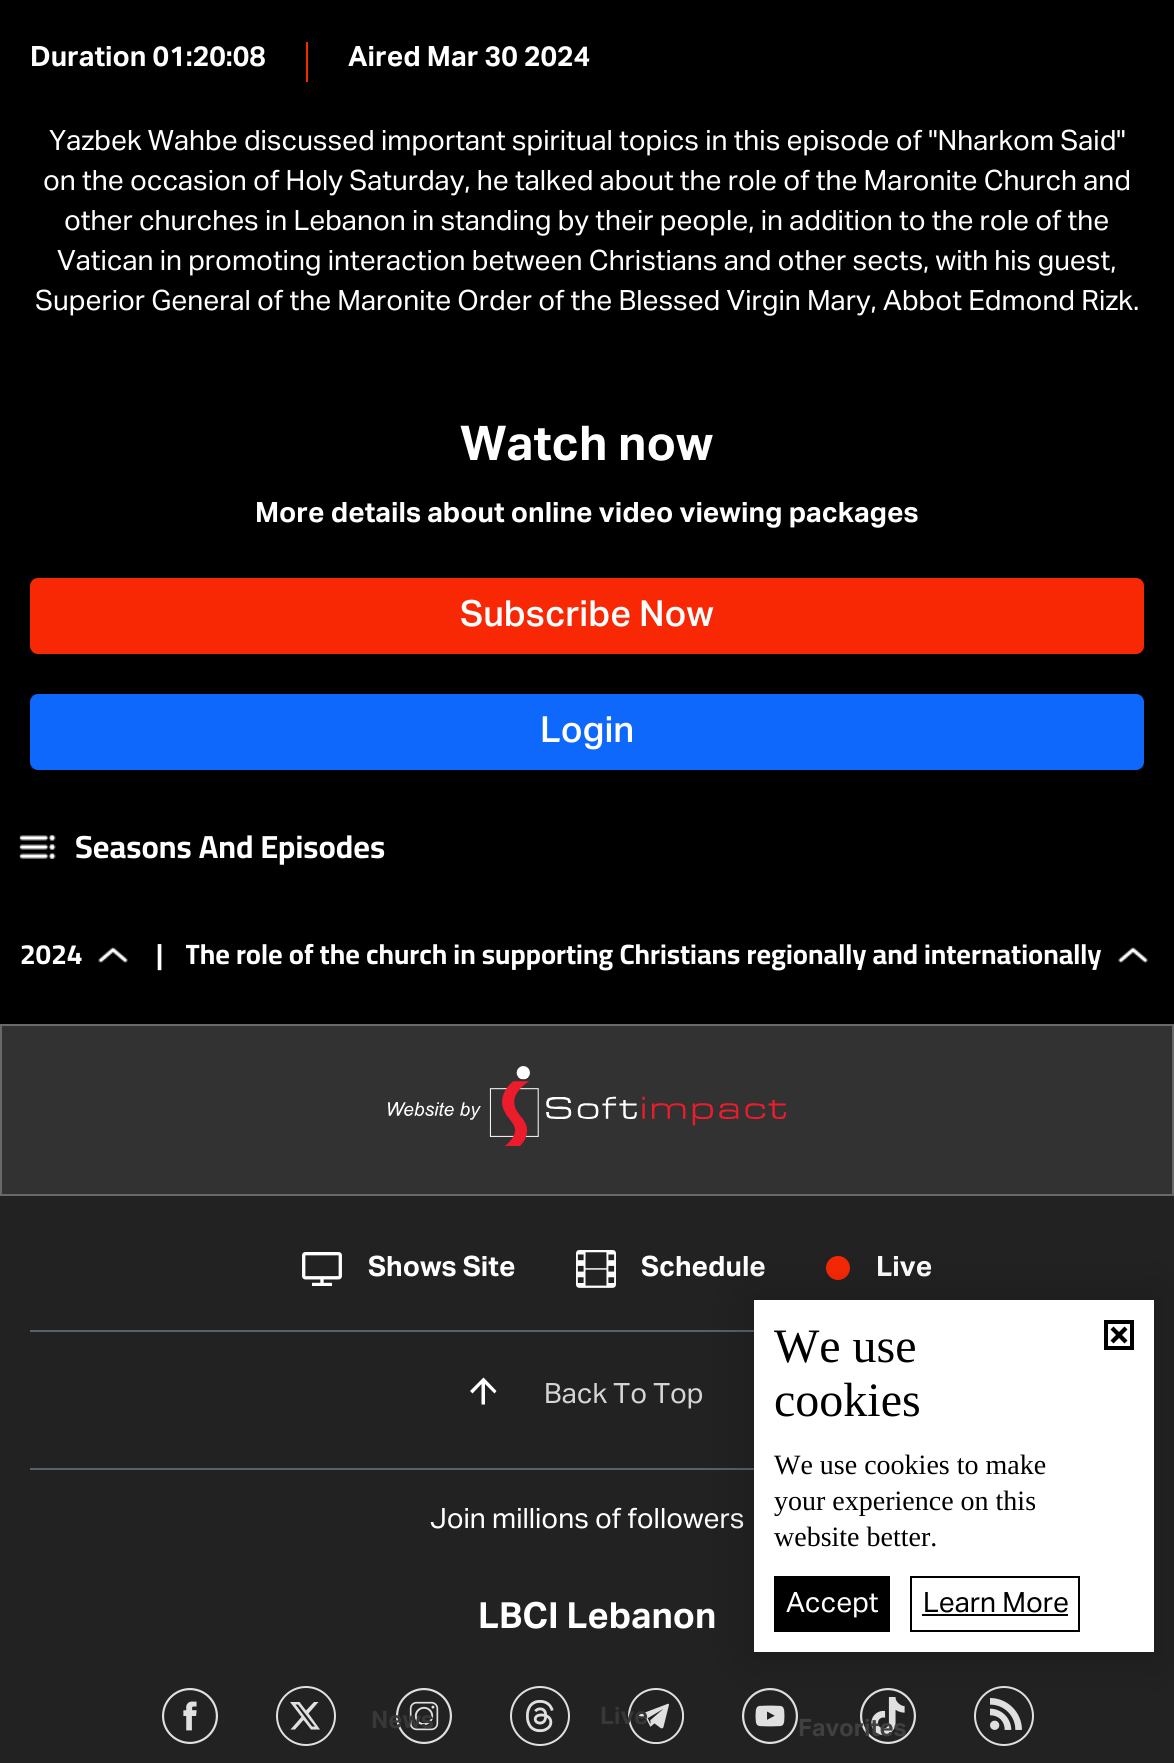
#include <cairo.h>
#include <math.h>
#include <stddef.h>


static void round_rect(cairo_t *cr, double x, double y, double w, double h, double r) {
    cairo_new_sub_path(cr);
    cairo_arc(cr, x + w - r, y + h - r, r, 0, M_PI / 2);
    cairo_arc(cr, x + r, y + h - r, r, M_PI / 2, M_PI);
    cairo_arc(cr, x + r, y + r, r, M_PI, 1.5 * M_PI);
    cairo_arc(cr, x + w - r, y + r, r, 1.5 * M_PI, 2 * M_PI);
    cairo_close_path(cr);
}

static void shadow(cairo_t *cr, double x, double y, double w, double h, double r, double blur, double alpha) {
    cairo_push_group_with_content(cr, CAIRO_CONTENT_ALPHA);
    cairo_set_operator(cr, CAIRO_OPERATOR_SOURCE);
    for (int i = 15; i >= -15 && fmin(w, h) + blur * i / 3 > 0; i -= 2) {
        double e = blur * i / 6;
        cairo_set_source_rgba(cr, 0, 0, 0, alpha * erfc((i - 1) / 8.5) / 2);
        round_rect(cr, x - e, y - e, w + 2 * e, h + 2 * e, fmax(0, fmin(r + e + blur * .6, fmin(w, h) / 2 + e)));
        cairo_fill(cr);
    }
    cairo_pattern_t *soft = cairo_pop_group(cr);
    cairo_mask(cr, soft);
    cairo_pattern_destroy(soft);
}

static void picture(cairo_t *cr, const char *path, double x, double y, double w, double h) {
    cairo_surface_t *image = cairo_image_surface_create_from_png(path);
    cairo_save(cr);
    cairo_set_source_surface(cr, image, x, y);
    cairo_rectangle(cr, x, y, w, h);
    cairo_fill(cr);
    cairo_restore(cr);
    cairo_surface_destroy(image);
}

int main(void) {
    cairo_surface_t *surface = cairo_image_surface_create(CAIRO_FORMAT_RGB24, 1174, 1763);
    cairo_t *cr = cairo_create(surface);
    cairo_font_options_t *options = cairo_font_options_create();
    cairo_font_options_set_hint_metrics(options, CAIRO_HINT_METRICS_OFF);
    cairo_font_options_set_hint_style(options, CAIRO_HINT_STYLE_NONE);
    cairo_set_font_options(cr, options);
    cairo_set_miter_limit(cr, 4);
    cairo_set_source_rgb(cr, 0.196, 0.196, 0.196);
    cairo_paint(cr);
    cairo_set_source_rgb(cr, 0, 0, 0);
    cairo_rectangle(cr, 0, 0, 1174, 1024);
    cairo_fill(cr);
    cairo_select_font_face(cr, "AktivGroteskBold", CAIRO_FONT_SLANT_NORMAL, CAIRO_FONT_WEIGHT_BOLD);
    cairo_set_font_size(cr, 28);
    cairo_set_source_rgb(cr, 1, 1, 1);
    cairo_move_to(cr, 30, 66);
    cairo_show_text(cr, "Duration 01:20:08");
    cairo_set_source_rgb(cr, 0.969, 0.157, 0.02);
    cairo_rectangle(cr, 306, 42, 2, 40);
    cairo_fill(cr);
    cairo_set_source_rgb(cr, 1, 1, 1);
    cairo_move_to(cr, 348, 66);
    cairo_show_text(cr, "Aired Mar 30 2024");
    cairo_select_font_face(cr, "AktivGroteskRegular", CAIRO_FONT_SLANT_NORMAL, CAIRO_FONT_WEIGHT_NORMAL);
    cairo_move_to(cr, 49, 150);
    cairo_show_text(cr, "Yazbek Wahbe discussed important spiritual topics in this episode of \"Nharkom Said\"");
    cairo_move_to(cr, 43, 190);
    cairo_show_text(cr, "on the occasion of Holy Saturday, he talked about the role of the Maronite Church and");
    cairo_move_to(cr, 64, 230);
    cairo_show_text(cr, "other churches in Lebanon in standing by their people, in addition to the role of the");
    cairo_move_to(cr, 57, 270);
    cairo_show_text(cr, "Vatican in promoting interaction between Christians and other sects, with his guest,");
    cairo_move_to(cr, 35, 310);
    cairo_show_text(cr, "Superior General of the Maronite Order of the Blessed Virgin Mary, Abbot Edmond Rizk.");
    cairo_select_font_face(cr, "AktivGroteskBold", CAIRO_FONT_SLANT_NORMAL, CAIRO_FONT_WEIGHT_BOLD);
    cairo_set_font_size(cr, 48);
    cairo_move_to(cr, 460, 460);
    cairo_show_text(cr, "Watch now");
    cairo_set_font_size(cr, 28);
    cairo_move_to(cr, 255, 522);
    cairo_show_text(cr, "More details about online video viewing packages");
    cairo_set_source_rgb(cr, 0.969, 0.157, 0.02);
    round_rect(cr, 30, 578, 1114, 76, 8);
    cairo_fill(cr);
    cairo_select_font_face(cr, "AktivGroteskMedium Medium", CAIRO_FONT_SLANT_NORMAL, CAIRO_FONT_WEIGHT_NORMAL);
    cairo_set_font_size(cr, 36);
    cairo_set_source_rgb(cr, 1, 1, 1);
    cairo_move_to(cr, 460, 626);
    cairo_show_text(cr, "Subscribe Now");
    cairo_set_source_rgb(cr, 0.055, 0.408, 0.988);
    round_rect(cr, 30, 694, 1114, 76, 8);
    cairo_fill(cr);
    cairo_set_source_rgb(cr, 1, 1, 1);
    cairo_move_to(cr, 540, 742);
    cairo_show_text(cr, "Login");
    picture(cr, "img1.png", 19, 835, 37, 24);
    cairo_select_font_face(cr, "Cairo", CAIRO_FONT_SLANT_NORMAL, CAIRO_FONT_WEIGHT_BOLD);
    cairo_set_font_size(cr, 32);
    cairo_move_to(cr, 75, 858);
    cairo_show_text(cr, "Seasons And Episodes");
    cairo_set_font_size(cr, 28);
    cairo_move_to(cr, 20, 964);
    cairo_show_text(cr, "2024");
    picture(cr, "img2.png", 98, 947, 30, 16);
    cairo_move_to(cr, 156, 964);
    cairo_show_text(cr, "|");
    cairo_save(cr);
    cairo_rectangle(cr, 186, 884, 926, 140);
    cairo_clip(cr);
    cairo_move_to(cr, 185, 964);
    cairo_show_text(cr, "The role of the church in supporting Christians regionally and internationally");
    cairo_restore(cr);
    picture(cr, "img2.png", 1118, 947, 30, 16);
    cairo_rectangle(cr, 1, 1025, 1172, 170);
    cairo_set_source_rgb(cr, 0.412, 0.412, 0.412);
    cairo_stroke(cr);
    picture(cr, "img3.png", 388, 1066, 398, 80);
    cairo_set_source_rgb(cr, 0.133, 0.133, 0.133);
    cairo_rectangle(cr, 0, 1196, 1174, 567);
    cairo_fill(cr);
    cairo_set_source_rgb(cr, 0.345, 0.376, 0.412);
    cairo_rectangle(cr, 30, 1468, 724, 2);
    cairo_fill(cr);
    cairo_rectangle(cr, 30, 1330, 724, 2);
    cairo_fill(cr);
    picture(cr, "img4.png", 302, 1252, 40, 34);
    cairo_select_font_face(cr, "AktivGroteskBold", CAIRO_FONT_SLANT_NORMAL, CAIRO_FONT_WEIGHT_BOLD);
    cairo_set_source_rgb(cr, 1, 1, 1);
    cairo_move_to(cr, 368, 1276);
    cairo_show_text(cr, "Shows Site");
    picture(cr, "img5.png", 576, 1250, 40, 38);
    cairo_move_to(cr, 641, 1276);
    cairo_show_text(cr, "Schedule");
    cairo_set_source_rgb(cr, 0.969, 0.157, 0.02);
    cairo_new_path(cr);
    cairo_arc(cr, 838, 1268, 12, 0, 2 * M_PI);
    cairo_fill(cr);
    cairo_set_source_rgb(cr, 1, 1, 1);
    cairo_move_to(cr, 876, 1276);
    cairo_show_text(cr, "Live");
    cairo_new_path(cr);
    cairo_move_to(cr, 485, 1404.5);
    cairo_line_to(cr, 481.5, 1404.5);
    cairo_line_to(cr, 481.5, 1384);
    cairo_line_to(cr, 472.5, 1393.5);
    cairo_line_to(cr, 470, 1391);
    cairo_line_to(cr, 483.5, 1377.5);
    cairo_line_to(cr, 496.5, 1391);
    cairo_line_to(cr, 494.5, 1393.5);
    cairo_line_to(cr, 485, 1384);
    cairo_close_path(cr);
    cairo_fill(cr);
    cairo_select_font_face(cr, "AktivGroteskRegular", CAIRO_FONT_SLANT_NORMAL, CAIRO_FONT_WEIGHT_NORMAL);
    cairo_set_source_rgb(cr, 0.831, 0.835, 0.843);
    cairo_move_to(cr, 544, 1403);
    cairo_show_text(cr, "Back To Top");
    cairo_set_source_rgb(cr, 1, 1, 1);
    cairo_move_to(cr, 430, 1528);
    cairo_show_text(cr, "Join millions of followers");
    cairo_select_font_face(cr, "AktivGroteskBold", CAIRO_FONT_SLANT_NORMAL, CAIRO_FONT_WEIGHT_BOLD);
    cairo_set_font_size(cr, 36);
    cairo_move_to(cr, 478, 1628);
    cairo_show_text(cr, "LBCI Lebanon");
    picture(cr, "img6.png", 162, 1688, 56, 56);
    cairo_arc(cr, 306, 1716, 29, 0, 2 * M_PI);
    cairo_set_source_rgb(cr, 0.878, 0.878, 0.878);
    cairo_stroke(cr);
    cairo_new_path(cr);
    cairo_move_to(cr, 314, 1702);
    cairo_line_to(cr, 318.5, 1702);
    cairo_line_to(cr, 308.5, 1713.5);
    cairo_line_to(cr, 320, 1729.5);
    cairo_line_to(cr, 311, 1729.5);
    cairo_line_to(cr, 303.5, 1720);
    cairo_line_to(cr, 295, 1729.5);
    cairo_line_to(cr, 290.5, 1729.5);
    cairo_line_to(cr, 301.5, 1717);
    cairo_line_to(cr, 290, 1702);
    cairo_line_to(cr, 299.5, 1702);
    cairo_line_to(cr, 306, 1710.5);
    cairo_close_path(cr);
    cairo_move_to(cr, 312, 1726.5);
    cairo_line_to(cr, 315, 1726.5);
    cairo_line_to(cr, 298, 1704.5);
    cairo_line_to(cr, 295.5, 1704.5);
    cairo_close_path(cr);
    cairo_fill(cr);
    picture(cr, "img7.png", 396, 1688, 56, 56);
    picture(cr, "img8.png", 510, 1686, 60, 60);
    picture(cr, "img9.png", 628, 1688, 56, 56);
    picture(cr, "img10.png", 742, 1688, 56, 56);
    picture(cr, "img11.png", 860, 1688, 56, 56);
    picture(cr, "img12.png", 974, 1686, 60, 60);
    cairo_set_source_rgb(cr, 0, 0, 0);
    shadow(cr, 748, 1294, 412, 364, 0, 24, 0.2);
    cairo_set_source_rgb(cr, 1, 1, 1);
    cairo_rectangle(cr, 754, 1300, 400, 352);
    cairo_fill(cr);
    cairo_select_font_face(cr, "Liberation Serif", CAIRO_FONT_SLANT_NORMAL, CAIRO_FONT_WEIGHT_NORMAL);
    cairo_set_font_size(cr, 48);
    cairo_set_source_rgb(cr, 0, 0, 0);
    cairo_move_to(cr, 774, 1362);
    cairo_show_text(cr, "We use");
    cairo_move_to(cr, 774, 1416);
    cairo_show_text(cr, "cookies");
    cairo_rectangle(cr, 1106, 1322, 26, 26);
    cairo_set_line_width(cr, 4);
    cairo_stroke(cr);
    cairo_new_path(cr);
    cairo_move_to(cr, 1110.5, 1329.5);
    cairo_line_to(cr, 1113.5, 1326.5);
    cairo_line_to(cr, 1127.5, 1340.5);
    cairo_line_to(cr, 1124.5, 1343.5);
    cairo_close_path(cr);
    cairo_fill(cr);
    cairo_new_path(cr);
    cairo_move_to(cr, 1124.5, 1326.5);
    cairo_line_to(cr, 1127.5, 1329.5);
    cairo_line_to(cr, 1113.5, 1343.5);
    cairo_line_to(cr, 1110.5, 1340.5);
    cairo_close_path(cr);
    cairo_fill(cr);
    cairo_set_font_size(cr, 28);
    cairo_move_to(cr, 774, 1474);
    cairo_show_text(cr, "We use cookies to make");
    cairo_move_to(cr, 774, 1510);
    cairo_show_text(cr, "your experience on this");
    cairo_move_to(cr, 774, 1546);
    cairo_show_text(cr, "website better.");
    cairo_rectangle(cr, 774, 1576, 116, 56);
    cairo_fill(cr);
    cairo_select_font_face(cr, "AktivGroteskRegular", CAIRO_FONT_SLANT_NORMAL, CAIRO_FONT_WEIGHT_NORMAL);
    cairo_set_source_rgb(cr, 1, 1, 1);
    cairo_move_to(cr, 786, 1612);
    cairo_show_text(cr, "Accept");
    cairo_rectangle(cr, 911, 1577, 168, 54);
    cairo_set_source_rgb(cr, 0, 0, 0);
    cairo_set_line_width(cr, 2);
    cairo_stroke(cr);
    cairo_move_to(cr, 923, 1612);
    cairo_show_text(cr, "Learn More");
    cairo_rectangle(cr, 922, 1614, 146, 2);
    cairo_fill(cr);
    cairo_select_font_face(cr, "AktivGroteskBold", CAIRO_FONT_SLANT_NORMAL, CAIRO_FONT_WEIGHT_BOLD);
    cairo_set_font_size(cr, 24);
    cairo_set_source_rgb(cr, 0.22, 0.22, 0.22);
    cairo_move_to(cr, 371, 1728);
    cairo_show_text(cr, "News");
    cairo_move_to(cr, 600, 1724);
    cairo_show_text(cr, "Live");
    cairo_set_source_rgb(cr, 0.251, 0.251, 0.251);
    cairo_move_to(cr, 798, 1736);
    cairo_show_text(cr, "Favorites");
    cairo_surface_write_to_png(surface, "page.png");
    cairo_font_options_destroy(options);
    cairo_destroy(cr);
    cairo_surface_destroy(surface);
    return 0;
}
